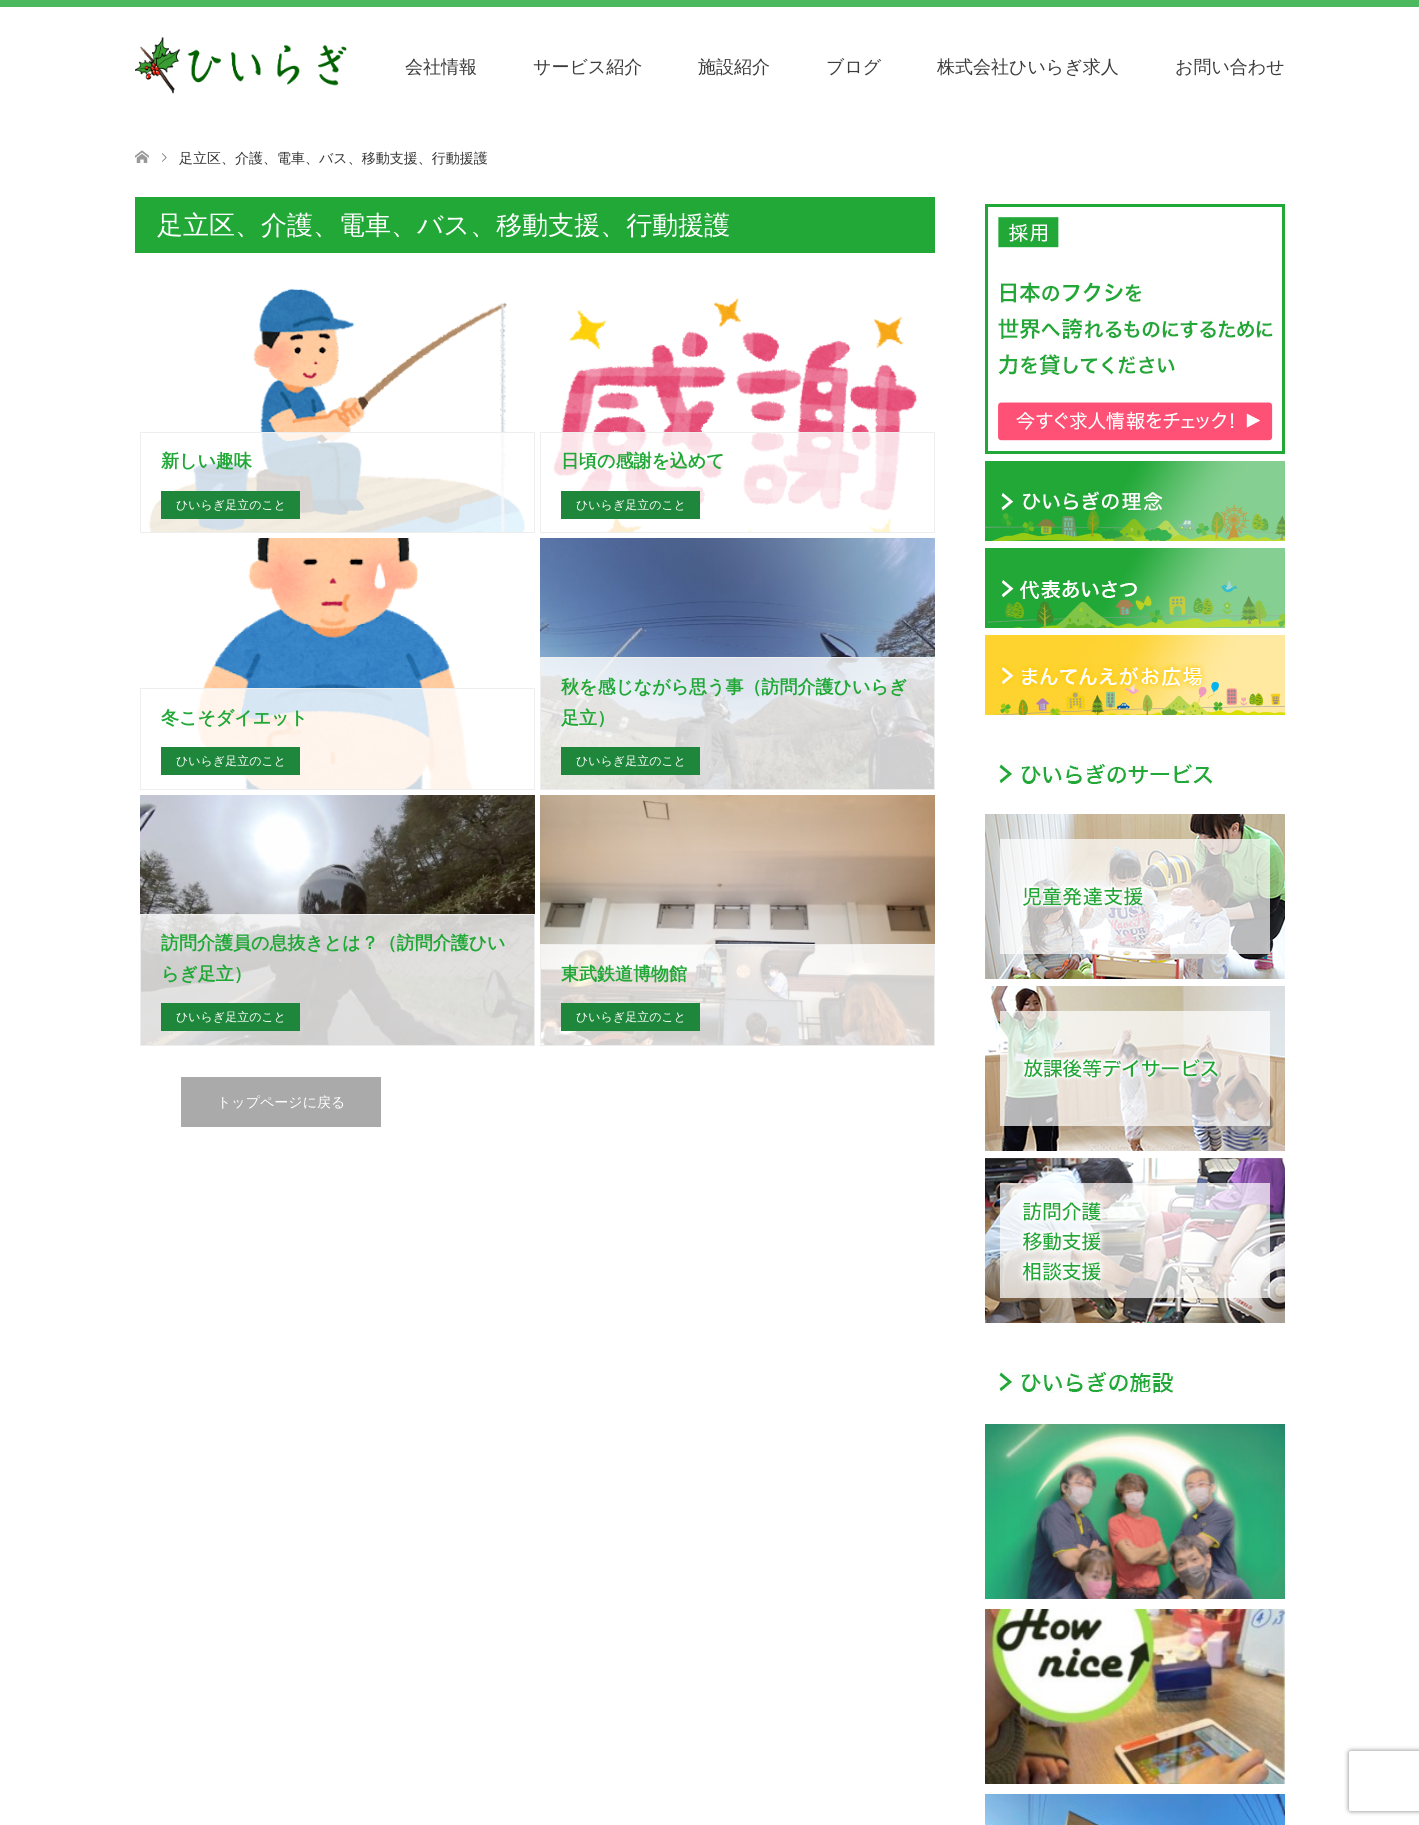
#include <cairo.h>
#include <math.h>
#include <stddef.h>


static void round_rect(cairo_t *cr, double x, double y, double w, double h, double r) {
    cairo_new_sub_path(cr);
    cairo_arc(cr, x + w - r, y + h - r, r, 0, M_PI / 2);
    cairo_arc(cr, x + r, y + h - r, r, M_PI / 2, M_PI);
    cairo_arc(cr, x + r, y + r, r, M_PI, 1.5 * M_PI);
    cairo_arc(cr, x + w - r, y + r, r, 1.5 * M_PI, 2 * M_PI);
    cairo_close_path(cr);
}

static void shadow(cairo_t *cr, double x, double y, double w, double h, double r, double blur, double alpha) {
    cairo_push_group_with_content(cr, CAIRO_CONTENT_ALPHA);
    cairo_set_operator(cr, CAIRO_OPERATOR_SOURCE);
    for (int i = 15; i >= -15 && fmin(w, h) + blur * i / 3 > 0; i -= 2) {
        double e = blur * i / 6;
        cairo_set_source_rgba(cr, 0, 0, 0, alpha * erfc((i - 1) / 8.5) / 2);
        round_rect(cr, x - e, y - e, w + 2 * e, h + 2 * e, fmax(0, fmin(r + e + blur * .6, fmin(w, h) / 2 + e)));
        cairo_fill(cr);
    }
    cairo_pattern_t *soft = cairo_pop_group(cr);
    cairo_mask(cr, soft);
    cairo_pattern_destroy(soft);
}

static void picture(cairo_t *cr, const char *path, double x, double y, double w, double h) {
    cairo_surface_t *image = cairo_image_surface_create_from_png(path);
    cairo_save(cr);
    cairo_set_source_surface(cr, image, x, y);
    cairo_rectangle(cr, x, y, w, h);
    cairo_fill(cr);
    cairo_restore(cr);
    cairo_surface_destroy(image);
}

int main(void) {
    cairo_surface_t *surface = cairo_image_surface_create(CAIRO_FORMAT_RGB24, 1419, 1825);
    cairo_t *cr = cairo_create(surface);
    cairo_font_options_t *options = cairo_font_options_create();
    cairo_font_options_set_hint_metrics(options, CAIRO_HINT_METRICS_OFF);
    cairo_font_options_set_hint_style(options, CAIRO_HINT_STYLE_NONE);
    cairo_set_font_options(cr, options);
    cairo_set_miter_limit(cr, 4);
    cairo_set_source_rgb(cr, 1, 1, 1);
    cairo_paint(cr);
    cairo_set_source_rgb(cr, 0.302, 0.725, 0.373);
    cairo_rectangle(cr, 0, 0, 1419, 7);
    cairo_fill(cr);
    picture(cr, "img1.png", 135, 37, 212, 57);
    cairo_select_font_face(cr, "WenQuanYi Zen Hei Medium", CAIRO_FONT_SLANT_NORMAL, CAIRO_FONT_WEIGHT_NORMAL);
    cairo_set_font_size(cr, 18);
    cairo_set_source_rgb(cr, 0.235, 0.235, 0.235);
    cairo_move_to(cr, 405, 73);
    cairo_show_text(cr, "会社情報");
    cairo_move_to(cr, 533, 73);
    cairo_show_text(cr, "サービス紹介");
    cairo_move_to(cr, 698, 73);
    cairo_show_text(cr, "施設紹介");
    cairo_move_to(cr, 826, 73);
    cairo_show_text(cr, "ブログ");
    cairo_move_to(cr, 937, 73);
    cairo_show_text(cr, "株式会社ひいらぎ求人");
    cairo_move_to(cr, 1175, 73);
    cairo_show_text(cr, "お問い合わせ");
    picture(cr, "img2.png", 135, 150, 14, 13);
    picture(cr, "img3.png", 162, 153, 5, 9);
    cairo_set_font_size(cr, 14);
    cairo_set_source_rgb(cr, 0.2, 0.2, 0.2);
    cairo_move_to(cr, 179, 163);
    cairo_show_text(cr, "足立区、介護、電車、バス、移動支援、行動援護");
    cairo_set_source_rgb(cr, 0.129, 0.659, 0.216);
    cairo_rectangle(cr, 135, 197, 800, 56);
    cairo_fill(cr);
    cairo_set_font_size(cr, 26);
    cairo_set_source_rgb(cr, 1, 1, 1);
    cairo_move_to(cr, 157, 234);
    cairo_show_text(cr, "足立区、介護、電車、バス、移動支援、行動援護");
    picture(cr, "img4.png", 149, 288, 377, 244);
    cairo_set_source_rgba(cr, 1, 1, 1, 0.8);
    cairo_rectangle(cr, 149, 433, 377, 99);
    cairo_fill(cr);
    cairo_rectangle(cr, 140.5, 432.5, 394, 100);
    cairo_set_source_rgb(cr, 0.933, 0.933, 0.933);
    cairo_set_line_width(cr, 1);
    cairo_stroke(cr);
    cairo_select_font_face(cr, "WenQuanYi Zen Hei", CAIRO_FONT_SLANT_NORMAL, CAIRO_FONT_WEIGHT_BOLD);
    cairo_set_font_size(cr, 18);
    cairo_set_source_rgb(cr, 0.129, 0.659, 0.216);
    cairo_move_to(cr, 161, 467);
    cairo_show_text(cr, "新しい趣味");
    cairo_set_source_rgb(cr, 0.122, 0.529, 0.235);
    cairo_rectangle(cr, 161, 491, 139, 28);
    cairo_fill(cr);
    cairo_select_font_face(cr, "WenQuanYi Zen Hei Medium", CAIRO_FONT_SLANT_NORMAL, CAIRO_FONT_WEIGHT_NORMAL);
    cairo_set_font_size(cr, 12);
    cairo_set_source_rgb(cr, 1, 1, 1);
    cairo_move_to(cr, 176, 509);
    cairo_show_text(cr, "ひいらぎ足立のこと");
    picture(cr, "img5.png", 553, 298, 364, 234);
    cairo_set_source_rgba(cr, 1, 1, 1, 0.8);
    cairo_rectangle(cr, 553, 433, 347, 99);
    cairo_fill(cr);
    cairo_rectangle(cr, 540.5, 432.5, 394, 100);
    cairo_set_source_rgb(cr, 0.933, 0.933, 0.933);
    cairo_stroke(cr);
    cairo_select_font_face(cr, "WenQuanYi Zen Hei", CAIRO_FONT_SLANT_NORMAL, CAIRO_FONT_WEIGHT_BOLD);
    cairo_set_font_size(cr, 18);
    cairo_set_source_rgb(cr, 0.129, 0.659, 0.216);
    cairo_move_to(cr, 561, 467);
    cairo_show_text(cr, "日頃の感謝を込めて");
    cairo_set_source_rgb(cr, 0.122, 0.529, 0.235);
    cairo_rectangle(cr, 561, 491, 139, 28);
    cairo_fill(cr);
    cairo_select_font_face(cr, "WenQuanYi Zen Hei Medium", CAIRO_FONT_SLANT_NORMAL, CAIRO_FONT_WEIGHT_NORMAL);
    cairo_set_font_size(cr, 12);
    cairo_set_source_rgb(cr, 1, 1, 1);
    cairo_move_to(cr, 576, 509);
    cairo_show_text(cr, "ひいらぎ足立のこと");
    picture(cr, "img6.png", 197, 538, 277, 251);
    cairo_set_source_rgba(cr, 1, 1, 1, 0.8);
    cairo_rectangle(cr, 197, 689, 276, 100);
    cairo_fill(cr);
    cairo_rectangle(cr, 140.5, 688.5, 394, 101);
    cairo_set_source_rgb(cr, 0.933, 0.933, 0.933);
    cairo_stroke(cr);
    cairo_select_font_face(cr, "WenQuanYi Zen Hei", CAIRO_FONT_SLANT_NORMAL, CAIRO_FONT_WEIGHT_BOLD);
    cairo_set_font_size(cr, 18);
    cairo_set_source_rgb(cr, 0.129, 0.659, 0.216);
    cairo_move_to(cr, 161, 724);
    cairo_show_text(cr, "冬こそダイエット");
    cairo_set_source_rgb(cr, 0.122, 0.529, 0.235);
    cairo_rectangle(cr, 161, 747, 139, 28);
    cairo_fill(cr);
    cairo_select_font_face(cr, "WenQuanYi Zen Hei Medium", CAIRO_FONT_SLANT_NORMAL, CAIRO_FONT_WEIGHT_NORMAL);
    cairo_set_font_size(cr, 12);
    cairo_set_source_rgb(cr, 1, 1, 1);
    cairo_move_to(cr, 176, 765);
    cairo_show_text(cr, "ひいらぎ足立のこと");
    picture(cr, "img7.png", 540, 538, 395, 251);
    cairo_set_source_rgba(cr, 1, 1, 1, 0.8);
    cairo_rectangle(cr, 540.5, 657.5, 394, 132);
    cairo_fill_preserve(cr);
    cairo_set_source_rgb(cr, 0.933, 0.933, 0.933);
    cairo_stroke(cr);
    cairo_select_font_face(cr, "WenQuanYi Zen Hei", CAIRO_FONT_SLANT_NORMAL, CAIRO_FONT_WEIGHT_BOLD);
    cairo_set_font_size(cr, 18);
    cairo_set_source_rgb(cr, 0.129, 0.659, 0.216);
    cairo_move_to(cr, 561, 693);
    cairo_show_text(cr, "秋を感じながら思う事（訪問介護ひいらぎ");
    cairo_move_to(cr, 561, 724);
    cairo_show_text(cr, "足立）");
    cairo_set_source_rgb(cr, 0.122, 0.529, 0.235);
    cairo_rectangle(cr, 561, 747, 139, 28);
    cairo_fill(cr);
    cairo_select_font_face(cr, "WenQuanYi Zen Hei Medium", CAIRO_FONT_SLANT_NORMAL, CAIRO_FONT_WEIGHT_NORMAL);
    cairo_set_font_size(cr, 12);
    cairo_set_source_rgb(cr, 1, 1, 1);
    cairo_move_to(cr, 576, 765);
    cairo_show_text(cr, "ひいらぎ足立のこと");
    picture(cr, "img8.png", 140, 795, 395, 250);
    cairo_set_source_rgba(cr, 1, 1, 1, 0.8);
    cairo_rectangle(cr, 140.5, 914.5, 394, 131);
    cairo_fill_preserve(cr);
    cairo_set_source_rgb(cr, 0.933, 0.933, 0.933);
    cairo_stroke(cr);
    cairo_select_font_face(cr, "WenQuanYi Zen Hei", CAIRO_FONT_SLANT_NORMAL, CAIRO_FONT_WEIGHT_BOLD);
    cairo_set_font_size(cr, 18);
    cairo_set_source_rgb(cr, 0.129, 0.659, 0.216);
    cairo_move_to(cr, 161, 949);
    cairo_show_text(cr, "訪問介護員の息抜きとは？（訪問介護ひい");
    cairo_move_to(cr, 161, 980);
    cairo_show_text(cr, "らぎ足立）");
    cairo_set_source_rgb(cr, 0.122, 0.529, 0.235);
    cairo_rectangle(cr, 161, 1003, 139, 28);
    cairo_fill(cr);
    cairo_select_font_face(cr, "WenQuanYi Zen Hei Medium", CAIRO_FONT_SLANT_NORMAL, CAIRO_FONT_WEIGHT_NORMAL);
    cairo_set_font_size(cr, 12);
    cairo_set_source_rgb(cr, 1, 1, 1);
    cairo_move_to(cr, 176, 1021);
    cairo_show_text(cr, "ひいらぎ足立のこと");
    picture(cr, "img9.png", 540, 795, 395, 250);
    cairo_set_source_rgba(cr, 1, 1, 1, 0.8);
    cairo_rectangle(cr, 540.5, 944.5, 394, 101);
    cairo_fill_preserve(cr);
    cairo_set_source_rgb(cr, 0.933, 0.933, 0.933);
    cairo_stroke(cr);
    cairo_select_font_face(cr, "WenQuanYi Zen Hei", CAIRO_FONT_SLANT_NORMAL, CAIRO_FONT_WEIGHT_BOLD);
    cairo_set_font_size(cr, 18);
    cairo_set_source_rgb(cr, 0.129, 0.659, 0.216);
    cairo_move_to(cr, 561, 980);
    cairo_show_text(cr, "東武鉄道博物館");
    cairo_set_source_rgb(cr, 0.122, 0.529, 0.235);
    cairo_rectangle(cr, 561, 1003, 139, 28);
    cairo_fill(cr);
    cairo_select_font_face(cr, "WenQuanYi Zen Hei Medium", CAIRO_FONT_SLANT_NORMAL, CAIRO_FONT_WEIGHT_NORMAL);
    cairo_set_font_size(cr, 12);
    cairo_set_source_rgb(cr, 1, 1, 1);
    cairo_move_to(cr, 576, 1021);
    cairo_show_text(cr, "ひいらぎ足立のこと");
    cairo_set_source_rgb(cr, 0.667, 0.667, 0.667);
    cairo_rectangle(cr, 181, 1077, 200, 50);
    cairo_fill(cr);
    cairo_set_font_size(cr, 14);
    cairo_set_source_rgb(cr, 1, 1, 1);
    cairo_move_to(cr, 217, 1107);
    cairo_show_text(cr, "トップページに戻る");
    picture(cr, "img10.png", 985, 204, 300, 250);
    picture(cr, "img11.png", 985, 461, 300, 80);
    picture(cr, "img12.png", 985, 548, 300, 80);
    picture(cr, "img13.png", 985, 635, 300, 80);
    picture(cr, "img14.png", 999, 764, 214, 20);
    picture(cr, "img15.png", 985, 814, 300, 165);
    picture(cr, "img16.png", 985, 986, 300, 165);
    picture(cr, "img17.png", 985, 1158, 300, 165);
    picture(cr, "img18.png", 999, 1372, 174, 21);
    picture(cr, "img19.png", 985, 1424, 300, 175);
    picture(cr, "img20.png", 985, 1609, 300, 175);
    picture(cr, "img21.png", 985, 1794, 300, 31);
    cairo_save(cr);
    cairo_set_fill_rule(cr, CAIRO_FILL_RULE_EVEN_ODD);
    cairo_new_path(cr);
    cairo_move_to(cr, 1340, 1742);
    cairo_line_to(cr, 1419, 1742);
    cairo_line_to(cr, 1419, 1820);
    cairo_line_to(cr, 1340, 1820);
    cairo_close_path(cr);
    cairo_move_to(cr, 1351, 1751);
    cairo_line_to(cr, 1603, 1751);
    cairo_curve_to(cr, 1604, 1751, 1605, 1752, 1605, 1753);
    cairo_line_to(cr, 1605, 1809);
    cairo_curve_to(cr, 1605, 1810, 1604, 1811, 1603, 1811);
    cairo_line_to(cr, 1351, 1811);
    cairo_curve_to(cr, 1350, 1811, 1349, 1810, 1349, 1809);
    cairo_line_to(cr, 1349, 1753);
    cairo_curve_to(cr, 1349, 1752, 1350, 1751, 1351, 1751);
    cairo_close_path(cr);
    cairo_clip(cr);
    cairo_set_source_rgb(cr, 0.502, 0.502, 0.502);
    shadow(cr, 1349, 1751, 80, 60, 2, 2.5, 1);
    cairo_restore(cr);
    cairo_surface_write_to_png(surface, "page.png");
    cairo_font_options_destroy(options);
    cairo_destroy(cr);
    cairo_surface_destroy(surface);
    return 0;
}
